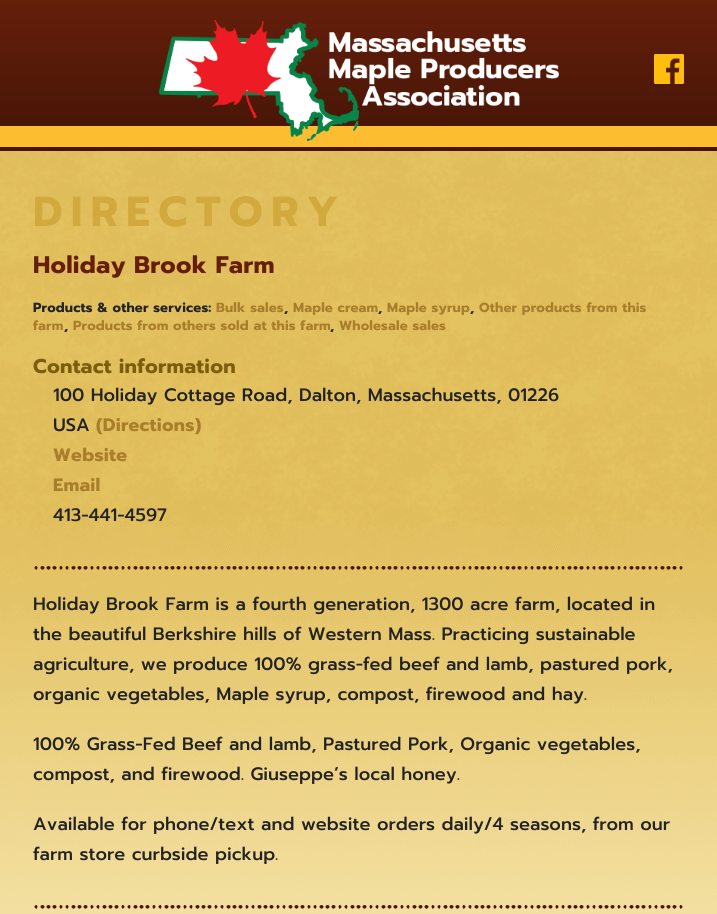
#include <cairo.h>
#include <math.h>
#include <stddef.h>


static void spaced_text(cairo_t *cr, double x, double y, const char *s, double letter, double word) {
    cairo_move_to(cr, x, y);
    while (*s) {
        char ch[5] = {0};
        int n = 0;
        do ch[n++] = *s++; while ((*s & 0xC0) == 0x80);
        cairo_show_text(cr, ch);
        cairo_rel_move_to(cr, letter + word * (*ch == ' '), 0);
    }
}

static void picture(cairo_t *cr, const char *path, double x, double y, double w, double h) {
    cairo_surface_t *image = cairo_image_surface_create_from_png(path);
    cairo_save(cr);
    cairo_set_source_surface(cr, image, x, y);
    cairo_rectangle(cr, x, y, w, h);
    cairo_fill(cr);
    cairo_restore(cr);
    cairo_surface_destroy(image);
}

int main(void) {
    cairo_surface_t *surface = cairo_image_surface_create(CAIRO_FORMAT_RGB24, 717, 914);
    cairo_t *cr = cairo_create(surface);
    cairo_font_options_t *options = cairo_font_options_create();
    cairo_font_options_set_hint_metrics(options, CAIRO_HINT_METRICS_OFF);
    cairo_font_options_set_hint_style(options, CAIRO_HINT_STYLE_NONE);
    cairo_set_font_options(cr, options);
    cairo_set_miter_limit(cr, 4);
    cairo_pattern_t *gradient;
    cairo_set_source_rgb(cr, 1, 1, 1);
    cairo_paint(cr);
    gradient = cairo_pattern_create_linear(359, 0, 359, 126);
    cairo_pattern_add_color_stop_rgba(gradient, 0, 0.396, 0.122, 0.043, 1);
    cairo_pattern_add_color_stop_rgba(gradient, 1, 0.286, 0.086, 0.027, 1);
    cairo_set_source(cr, gradient);
    cairo_pattern_destroy(gradient);
    cairo_rectangle(cr, 0, 0, 717, 126);
    cairo_fill(cr);
    cairo_set_source_rgb(cr, 0.988, 0.741, 0.192);
    cairo_rectangle(cr, 0, 126, 717, 21);
    cairo_fill(cr);
    picture(cr, "img1.png", 159, 20, 400, 121);
    picture(cr, "img2.png", 654, 54, 30, 30);
    cairo_set_source_rgb(cr, 0.286, 0.082, 0.027);
    cairo_rectangle(cr, 0, 147, 717, 4);
    cairo_fill(cr);
    cairo_set_source_rgb(cr, 1, 0.961, 0.812);
    cairo_rectangle(cr, 0, 151, 717, 763);
    cairo_fill(cr);
    picture(cr, "img3.png", 0, 151, 717, 763);
    cairo_select_font_face(cr, "Prompt", CAIRO_FONT_SLANT_NORMAL, CAIRO_FONT_WEIGHT_BOLD);
    cairo_set_font_size(cr, 42);
    cairo_set_source_rgb(cr, 0.82, 0.663, 0.235);
    spaced_text(cr, 33, 226, "DIRECTORY", 8.5, 0);
    cairo_set_font_size(cr, 24);
    cairo_set_source_rgb(cr, 0.392, 0.118, 0.043);
    spaced_text(cr, 33, 273, "Holiday Brook Farm", 0.25, 0);
    cairo_set_font_size(cr, 13.25);
    cairo_set_source_rgb(cr, 0.133, 0.133, 0.133);
    spaced_text(cr, 33, 312, "Products & other services:", 0.15, 0);
    cairo_set_source_rgb(cr, 0.659, 0.494, 0.173);
    spaced_text(cr, 216, 312, "Bulk sales", 0.15, 0);
    cairo_set_source_rgb(cr, 0.133, 0.133, 0.133);
    spaced_text(cr, 284, 312, ",", 0.15, 0);
    cairo_set_source_rgb(cr, 0.659, 0.494, 0.173);
    spaced_text(cr, 293, 312, "Maple cream", 0.15, 0);
    cairo_set_source_rgb(cr, 0.133, 0.133, 0.133);
    spaced_text(cr, 378, 312, ",", 0.15, 0);
    cairo_set_source_rgb(cr, 0.659, 0.494, 0.173);
    spaced_text(cr, 387, 312, "Maple syrup", 0.15, 0);
    cairo_set_source_rgb(cr, 0.133, 0.133, 0.133);
    spaced_text(cr, 470, 312, ",", 0.15, 0);
    cairo_set_source_rgb(cr, 0.659, 0.494, 0.173);
    spaced_text(cr, 479, 312, "Other products from this", 0.15, 0);
    spaced_text(cr, 33, 330, "farm", 0.15, 0);
    cairo_set_source_rgb(cr, 0.133, 0.133, 0.133);
    spaced_text(cr, 64, 330, ",", 0.15, 0);
    cairo_set_source_rgb(cr, 0.659, 0.494, 0.173);
    spaced_text(cr, 73, 330, "Products from others sold at this farm", 0.15, 0);
    cairo_set_source_rgb(cr, 0.133, 0.133, 0.133);
    spaced_text(cr, 330, 330, ",", 0.15, 0);
    cairo_set_source_rgb(cr, 0.659, 0.494, 0.173);
    spaced_text(cr, 339, 330, "Wholesale sales", 0.15, 0);
    cairo_set_font_size(cr, 20);
    cairo_set_source_rgb(cr, 0.486, 0.365, 0.051);
    spaced_text(cr, 33, 373, "Contact information", 0.25, 0);
    cairo_select_font_face(cr, "Prompt Medium", CAIRO_FONT_SLANT_NORMAL, CAIRO_FONT_WEIGHT_NORMAL);
    cairo_set_font_size(cr, 18);
    cairo_set_source_rgb(cr, 0.133, 0.133, 0.133);
    cairo_move_to(cr, 53, 401);
    cairo_show_text(cr, "100 Holiday Cottage Road, Dalton, Massachusetts, 01226");
    cairo_move_to(cr, 53, 431);
    cairo_show_text(cr, "USA");
    cairo_select_font_face(cr, "Prompt", CAIRO_FONT_SLANT_NORMAL, CAIRO_FONT_WEIGHT_BOLD);
    cairo_set_source_rgb(cr, 0.659, 0.494, 0.173);
    spaced_text(cr, 96, 431, "(Directions)", 0.25, 0);
    spaced_text(cr, 53, 461, "Website", 0.25, 0);
    spaced_text(cr, 53, 491, "Email", 0.25, 0);
    cairo_select_font_face(cr, "Prompt Medium", CAIRO_FONT_SLANT_NORMAL, CAIRO_FONT_WEIGHT_NORMAL);
    cairo_set_source_rgb(cr, 0.133, 0.133, 0.133);
    cairo_move_to(cr, 53, 521);
    cairo_show_text(cr, "413-441-4597");
    picture(cr, "img4.png", 34, 566, 649, 4);
    cairo_move_to(cr, 33, 610);
    cairo_show_text(cr, "Holiday Brook Farm is a fourth generation, 1300 acre farm, located in");
    cairo_move_to(cr, 33, 640);
    cairo_show_text(cr, "the beautiful Berkshire hills of Western Mass. Practicing sustainable");
    cairo_move_to(cr, 33, 670);
    cairo_show_text(cr, "agriculture, we produce 100% grass-fed beef and lamb, pastured pork,");
    cairo_move_to(cr, 33, 700);
    cairo_show_text(cr, "organic vegetables, Maple syrup, compost, firewood and hay.");
    cairo_move_to(cr, 33, 750);
    cairo_show_text(cr, "100% Grass-Fed Beef and lamb, Pastured Pork, Organic vegetables,");
    cairo_move_to(cr, 33, 780);
    cairo_show_text(cr, "compost, and firewood. Giuseppe’s local honey.");
    cairo_move_to(cr, 33, 830);
    cairo_show_text(cr, "Available for phone/text and website orders daily/4 seasons, from our");
    cairo_move_to(cr, 33, 860);
    cairo_show_text(cr, "farm store curbside pickup.");
    picture(cr, "img5.png", 34, 905, 649, 4);
    cairo_surface_write_to_png(surface, "page.png");
    cairo_font_options_destroy(options);
    cairo_destroy(cr);
    cairo_surface_destroy(surface);
    return 0;
}
